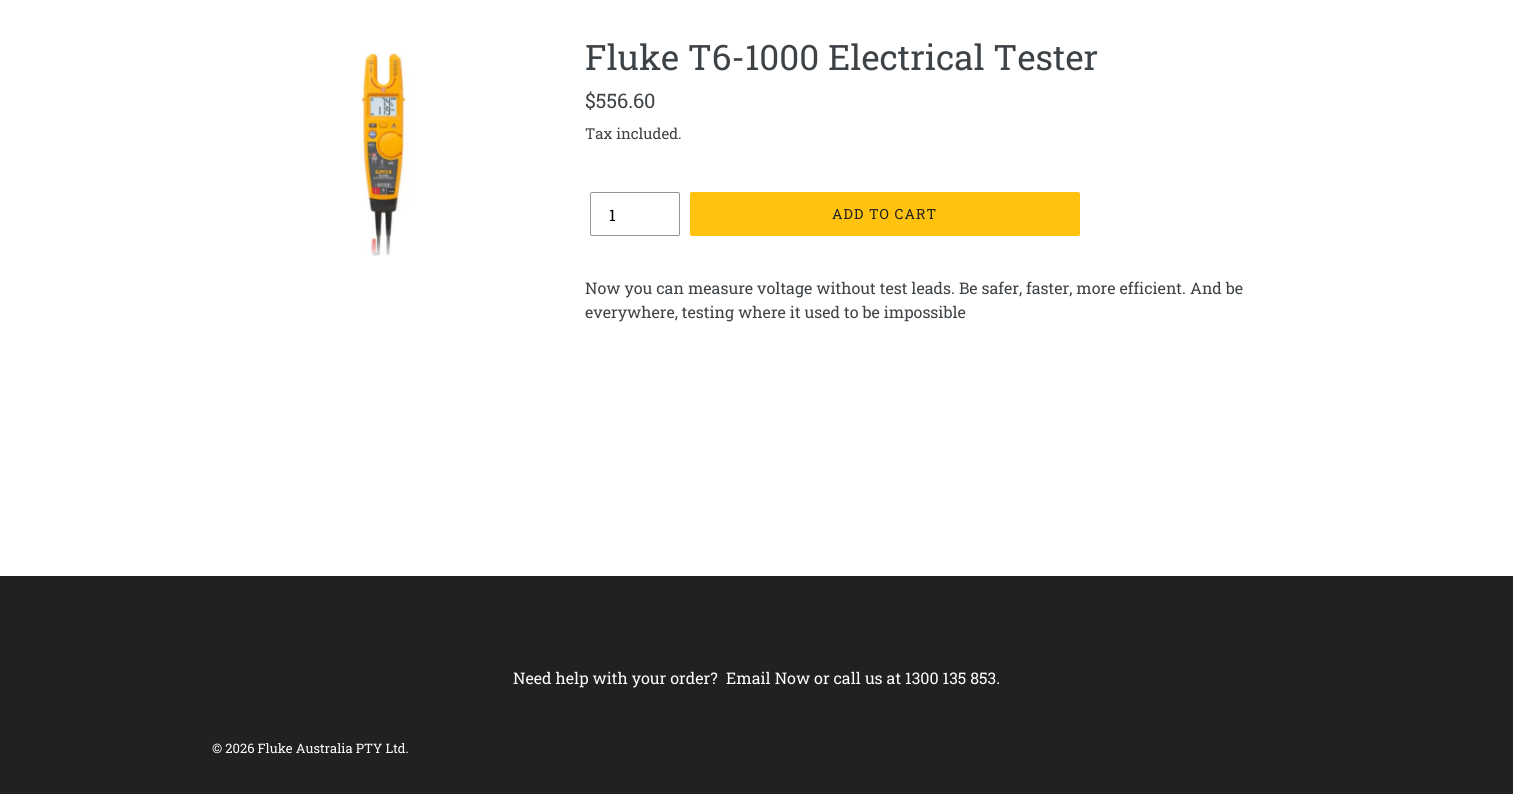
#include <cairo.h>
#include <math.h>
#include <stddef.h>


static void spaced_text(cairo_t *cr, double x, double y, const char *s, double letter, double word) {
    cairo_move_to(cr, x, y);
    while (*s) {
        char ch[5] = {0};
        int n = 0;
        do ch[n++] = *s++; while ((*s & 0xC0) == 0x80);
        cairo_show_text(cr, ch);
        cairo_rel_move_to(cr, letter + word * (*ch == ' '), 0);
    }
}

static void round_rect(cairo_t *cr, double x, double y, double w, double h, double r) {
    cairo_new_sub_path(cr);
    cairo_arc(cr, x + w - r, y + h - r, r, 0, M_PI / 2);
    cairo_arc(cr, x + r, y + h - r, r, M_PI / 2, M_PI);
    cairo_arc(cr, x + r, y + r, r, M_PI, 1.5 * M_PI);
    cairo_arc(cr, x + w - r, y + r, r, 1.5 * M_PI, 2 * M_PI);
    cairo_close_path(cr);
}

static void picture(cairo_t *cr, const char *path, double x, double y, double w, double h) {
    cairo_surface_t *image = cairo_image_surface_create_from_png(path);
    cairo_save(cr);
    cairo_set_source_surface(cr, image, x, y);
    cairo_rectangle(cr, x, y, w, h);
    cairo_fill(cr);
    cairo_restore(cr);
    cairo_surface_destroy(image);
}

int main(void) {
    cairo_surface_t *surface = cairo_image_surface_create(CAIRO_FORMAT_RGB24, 1513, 794);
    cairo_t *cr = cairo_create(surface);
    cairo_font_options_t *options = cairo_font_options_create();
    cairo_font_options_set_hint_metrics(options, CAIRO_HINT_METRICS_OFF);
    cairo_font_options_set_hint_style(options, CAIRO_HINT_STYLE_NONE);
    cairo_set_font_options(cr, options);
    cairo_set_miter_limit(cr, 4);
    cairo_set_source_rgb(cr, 1, 1, 1);
    cairo_paint(cr);
    picture(cr, "img1.png", 360, 53, 50, 203);
    cairo_select_font_face(cr, "Roboto Slab", CAIRO_FONT_SLANT_NORMAL, CAIRO_FONT_WEIGHT_NORMAL);
    cairo_set_font_size(cr, 35);
    cairo_set_source_rgb(cr, 0.239, 0.259, 0.275);
    cairo_move_to(cr, 585, 70);
    cairo_show_text(cr, "Fluke T6-1000 Electrical Tester");
    cairo_set_font_size(cr, 20);
    cairo_move_to(cr, 585, 108);
    cairo_show_text(cr, "$556.60");
    cairo_set_font_size(cr, 15);
    cairo_move_to(cr, 585, 139);
    cairo_show_text(cr, "Tax included.");
    round_rect(cr, 590.5, 192.5, 89, 43, 1.5);
    cairo_set_source_rgb(cr, 0.58, 0.58, 0.58);
    cairo_set_line_width(cr, 1);
    cairo_stroke(cr);
    cairo_set_font_size(cr, 16);
    cairo_set_source_rgb(cr, 0, 0, 0);
    cairo_move_to(cr, 609, 221);
    cairo_show_text(cr, "1");
    cairo_set_source_rgb(cr, 1, 0.761, 0.055);
    round_rect(cr, 690, 192, 390, 44, 2);
    cairo_fill(cr);
    cairo_set_font_size(cr, 14);
    cairo_set_source_rgb(cr, 0.129, 0.129, 0.129);
    spaced_text(cr, 832, 219, "ADD TO CART", 1.1, 0);
    cairo_set_font_size(cr, 16);
    cairo_set_source_rgb(cr, 0.239, 0.259, 0.275);
    cairo_move_to(cr, 585, 294);
    cairo_show_text(cr, "Now you can measure voltage without test leads. Be safer, faster, more efficient. And be");
    cairo_move_to(cr, 585, 318);
    cairo_show_text(cr, "everywhere, testing where it used to be impossible");
    cairo_set_source_rgb(cr, 0.129, 0.129, 0.129);
    cairo_rectangle(cr, 0, 576, 1513, 218);
    cairo_fill(cr);
    cairo_set_source_rgb(cr, 1, 1, 1);
    cairo_move_to(cr, 513, 684);
    cairo_show_text(cr, "Need help with your order?");
    cairo_move_to(cr, 726, 684);
    cairo_show_text(cr, "Email Now or call us at 1300 135 853.");
    cairo_set_font_size(cr, 13);
    cairo_move_to(cr, 212, 753);
    cairo_show_text(cr, "© 2026 Fluke Australia PTY Ltd.");
    cairo_surface_write_to_png(surface, "page.png");
    cairo_font_options_destroy(options);
    cairo_destroy(cr);
    cairo_surface_destroy(surface);
    return 0;
}
